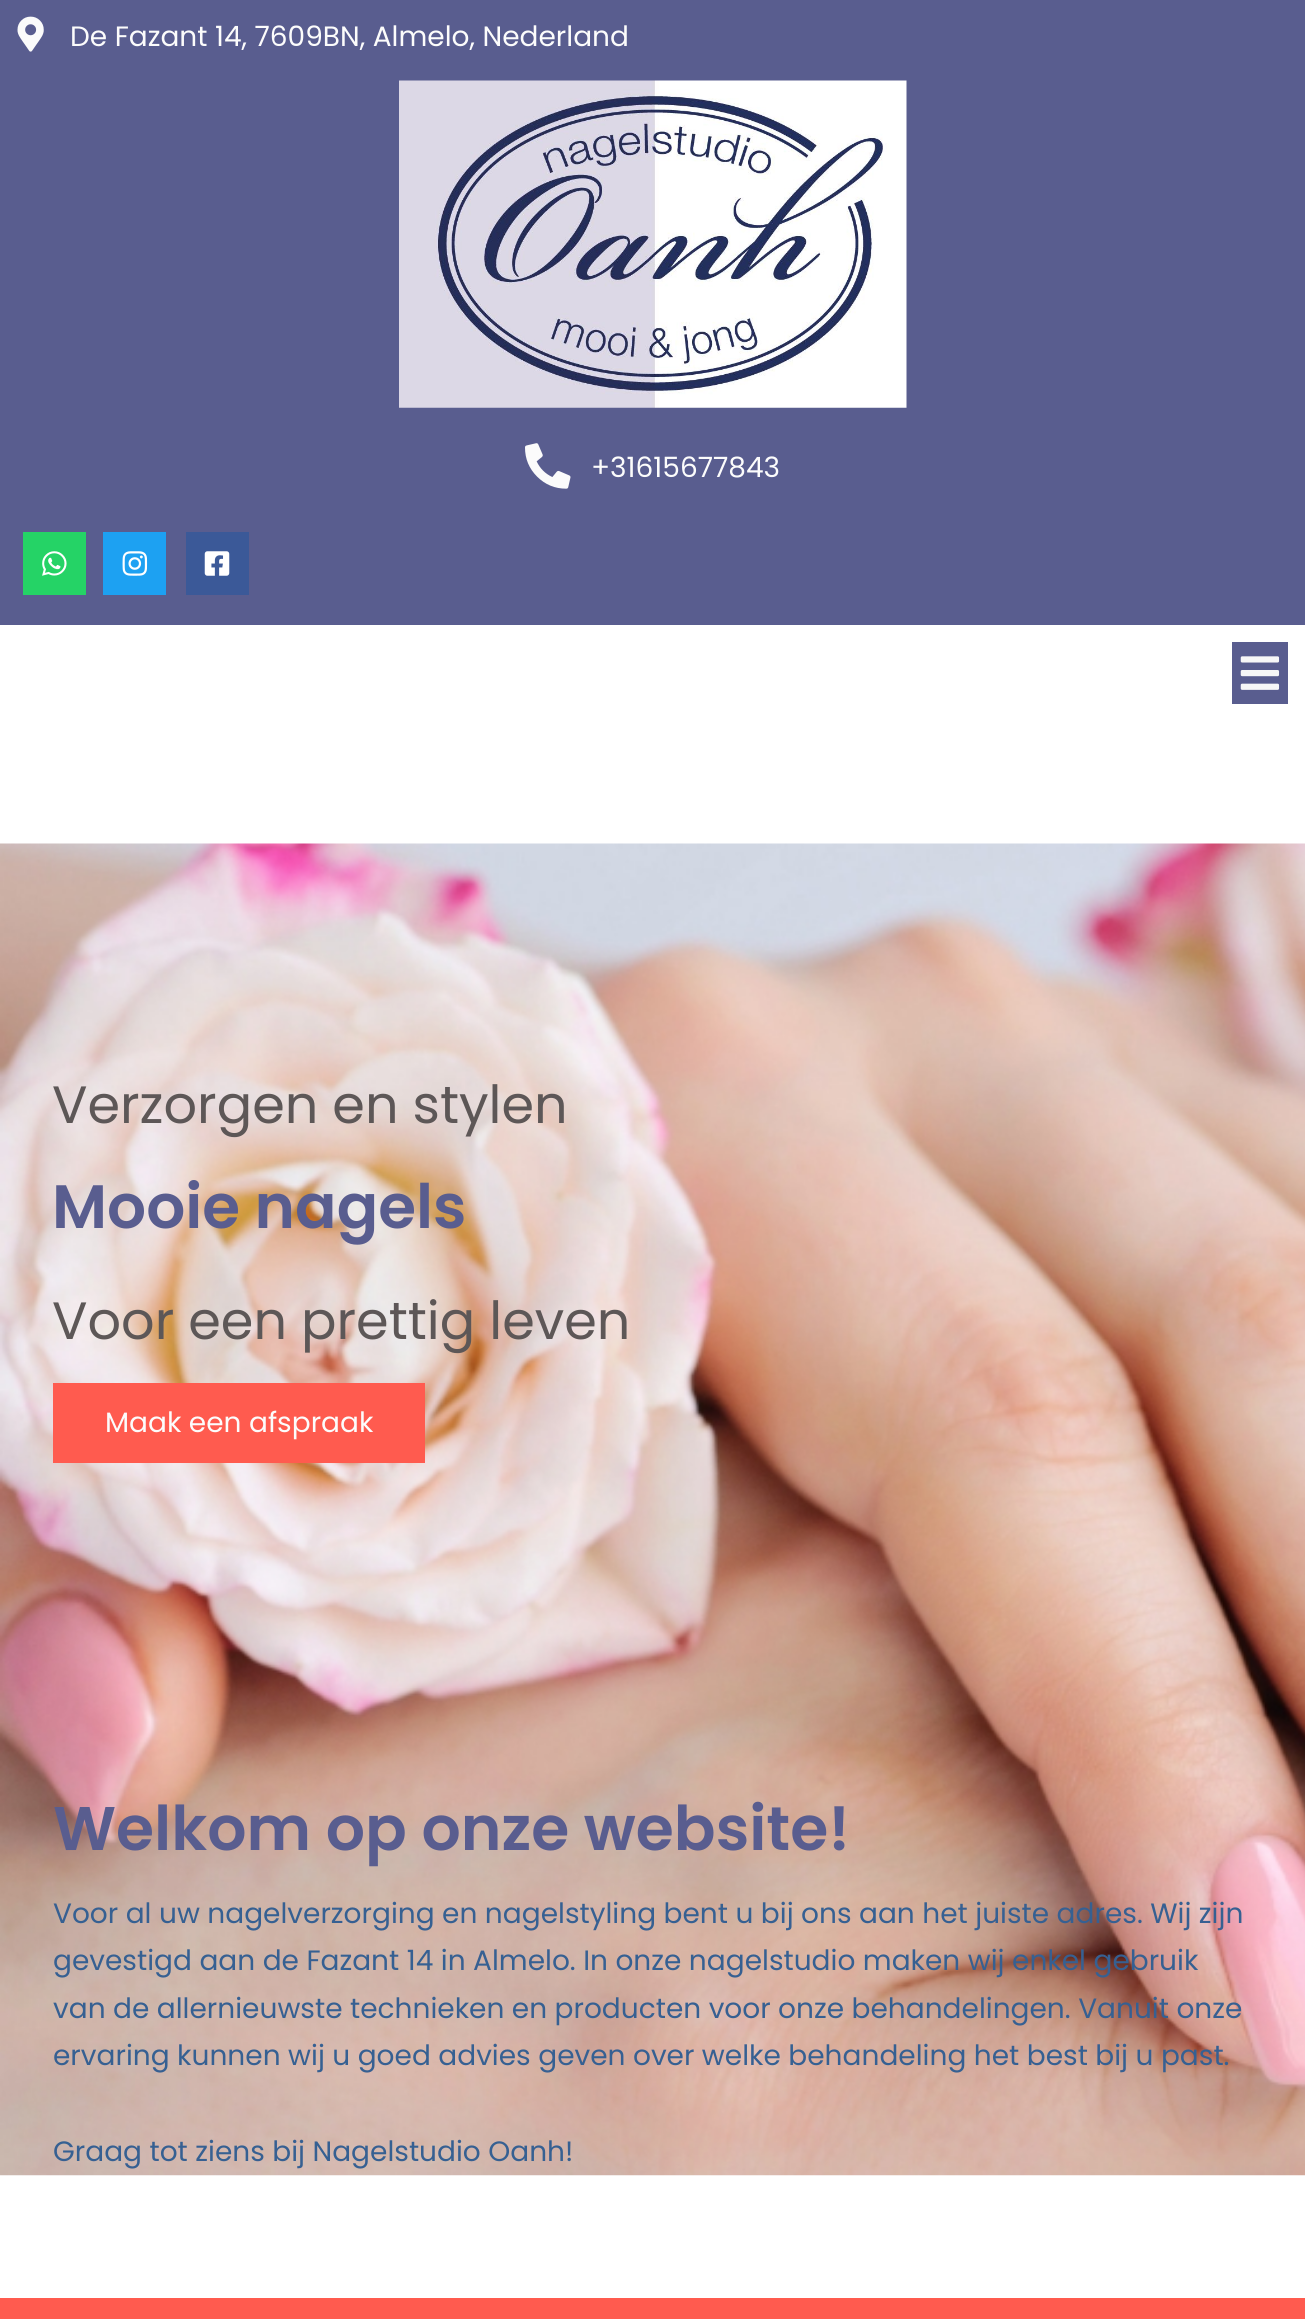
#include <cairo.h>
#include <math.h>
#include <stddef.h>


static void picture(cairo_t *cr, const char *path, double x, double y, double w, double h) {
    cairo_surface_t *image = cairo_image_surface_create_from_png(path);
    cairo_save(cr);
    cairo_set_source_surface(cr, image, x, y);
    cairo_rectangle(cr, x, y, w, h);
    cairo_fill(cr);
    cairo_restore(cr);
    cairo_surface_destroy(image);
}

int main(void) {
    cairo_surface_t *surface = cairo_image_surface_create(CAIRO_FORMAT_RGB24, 1305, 2319);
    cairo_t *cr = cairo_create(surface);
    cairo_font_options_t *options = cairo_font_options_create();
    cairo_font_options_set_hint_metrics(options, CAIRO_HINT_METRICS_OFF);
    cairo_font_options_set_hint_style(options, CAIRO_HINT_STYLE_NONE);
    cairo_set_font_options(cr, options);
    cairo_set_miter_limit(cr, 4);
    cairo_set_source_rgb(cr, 1, 1, 1);
    cairo_paint(cr);
    cairo_set_source_rgb(cr, 0.349, 0.365, 0.561);
    cairo_rectangle(cr, 0, 0, 1305, 625);
    cairo_fill(cr);
    picture(cr, "img1.png", 17, 16, 27, 36);
    cairo_select_font_face(cr, "Poppins", CAIRO_FONT_SLANT_NORMAL, CAIRO_FONT_WEIGHT_NORMAL);
    cairo_set_font_size(cr, 28);
    cairo_set_source_rgb(cr, 0.988, 0.988, 0.988);
    cairo_move_to(cr, 70, 46);
    cairo_show_text(cr, "De Fazant 14, 7609BN, Almelo, Nederland");
    picture(cr, "img2.png", 399, 80, 508, 328);
    picture(cr, "img3.png", 525, 443, 46, 46);
    cairo_move_to(cr, 591, 477);
    cairo_show_text(cr, "+31615677843");
    cairo_set_source_rgb(cr, 0.145, 0.827, 0.4);
    cairo_rectangle(cr, 23, 532, 63, 63);
    cairo_fill(cr);
    picture(cr, "img4.png", 42, 551, 25, 25);
    cairo_set_source_rgb(cr, 0.114, 0.631, 0.949);
    cairo_rectangle(cr, 103, 532, 63, 63);
    cairo_fill(cr);
    picture(cr, "img5.png", 122, 551, 26, 25);
    cairo_set_source_rgb(cr, 0.231, 0.349, 0.596);
    cairo_rectangle(cr, 186, 532, 63, 63);
    cairo_fill(cr);
    picture(cr, "img6.png", 204, 551, 26, 25);
    cairo_set_source_rgb(cr, 0.349, 0.365, 0.561);
    cairo_rectangle(cr, 1232, 642, 56, 62);
    cairo_fill(cr);
    picture(cr, "img7.png", 1240, 656, 40, 34);
    picture(cr, "img8.png", 0, 843, 1305, 1333);
    cairo_set_font_size(cr, 52.5);
    cairo_set_source_rgb(cr, 0.365, 0.341, 0.341);
    cairo_move_to(cr, 52, 1123);
    cairo_show_text(cr, "Verzorgen en stylen");
    cairo_select_font_face(cr, "Poppins SemiBold", CAIRO_FONT_SLANT_NORMAL, CAIRO_FONT_WEIGHT_NORMAL);
    cairo_set_font_size(cr, 61.25);
    cairo_set_source_rgb(cr, 0.349, 0.365, 0.561);
    cairo_move_to(cr, 52, 1228);
    cairo_show_text(cr, "Mooie nagels");
    cairo_select_font_face(cr, "Poppins", CAIRO_FONT_SLANT_NORMAL, CAIRO_FONT_WEIGHT_NORMAL);
    cairo_set_font_size(cr, 52.5);
    cairo_set_source_rgb(cr, 0.365, 0.341, 0.341);
    cairo_move_to(cr, 52, 1339);
    cairo_show_text(cr, "Voor een prettig leven");
    cairo_set_source_rgb(cr, 1, 0.357, 0.31);
    cairo_rectangle(cr, 53, 1383, 372, 80);
    cairo_fill(cr);
    cairo_set_font_size(cr, 28);
    cairo_set_source_rgb(cr, 0.988, 0.988, 0.988);
    cairo_move_to(cr, 105, 1432);
    cairo_show_text(cr, "Maak een afspraak");
    cairo_select_font_face(cr, "Poppins SemiBold", CAIRO_FONT_SLANT_NORMAL, CAIRO_FONT_WEIGHT_NORMAL);
    cairo_set_font_size(cr, 61.6);
    cairo_set_source_rgb(cr, 0.349, 0.365, 0.561);
    cairo_move_to(cr, 53, 1850);
    cairo_show_text(cr, "Welkom op onze website!");
    cairo_select_font_face(cr, "Poppins", CAIRO_FONT_SLANT_NORMAL, CAIRO_FONT_WEIGHT_NORMAL);
    cairo_set_font_size(cr, 28);
    cairo_set_source_rgb(cr, 0.212, 0.376, 0.573);
    cairo_move_to(cr, 53, 1923);
    cairo_show_text(cr, "Voor al uw nagelverzorging en nagelstyling bent u bij ons aan het juiste adres. Wij zijn");
    cairo_move_to(cr, 53, 1970);
    cairo_show_text(cr, "gevestigd aan de Fazant 14 in Almelo. In onze nagelstudio maken wij enkel gebruik");
    cairo_move_to(cr, 53, 2018);
    cairo_show_text(cr, "van de allernieuwste technieken en producten voor onze behandelingen. Vanuit onze");
    cairo_move_to(cr, 53, 2065);
    cairo_show_text(cr, "ervaring kunnen wij u goed advies geven over welke behandeling het best bij u past.");
    cairo_move_to(cr, 53, 2161);
    cairo_show_text(cr, "Graag tot ziens bij Nagelstudio Oanh!");
    cairo_set_source_rgb(cr, 1, 0.357, 0.31);
    cairo_rectangle(cr, 0, 2298, 1305, 21);
    cairo_fill(cr);
    cairo_surface_write_to_png(surface, "page.png");
    cairo_font_options_destroy(options);
    cairo_destroy(cr);
    cairo_surface_destroy(surface);
    return 0;
}
